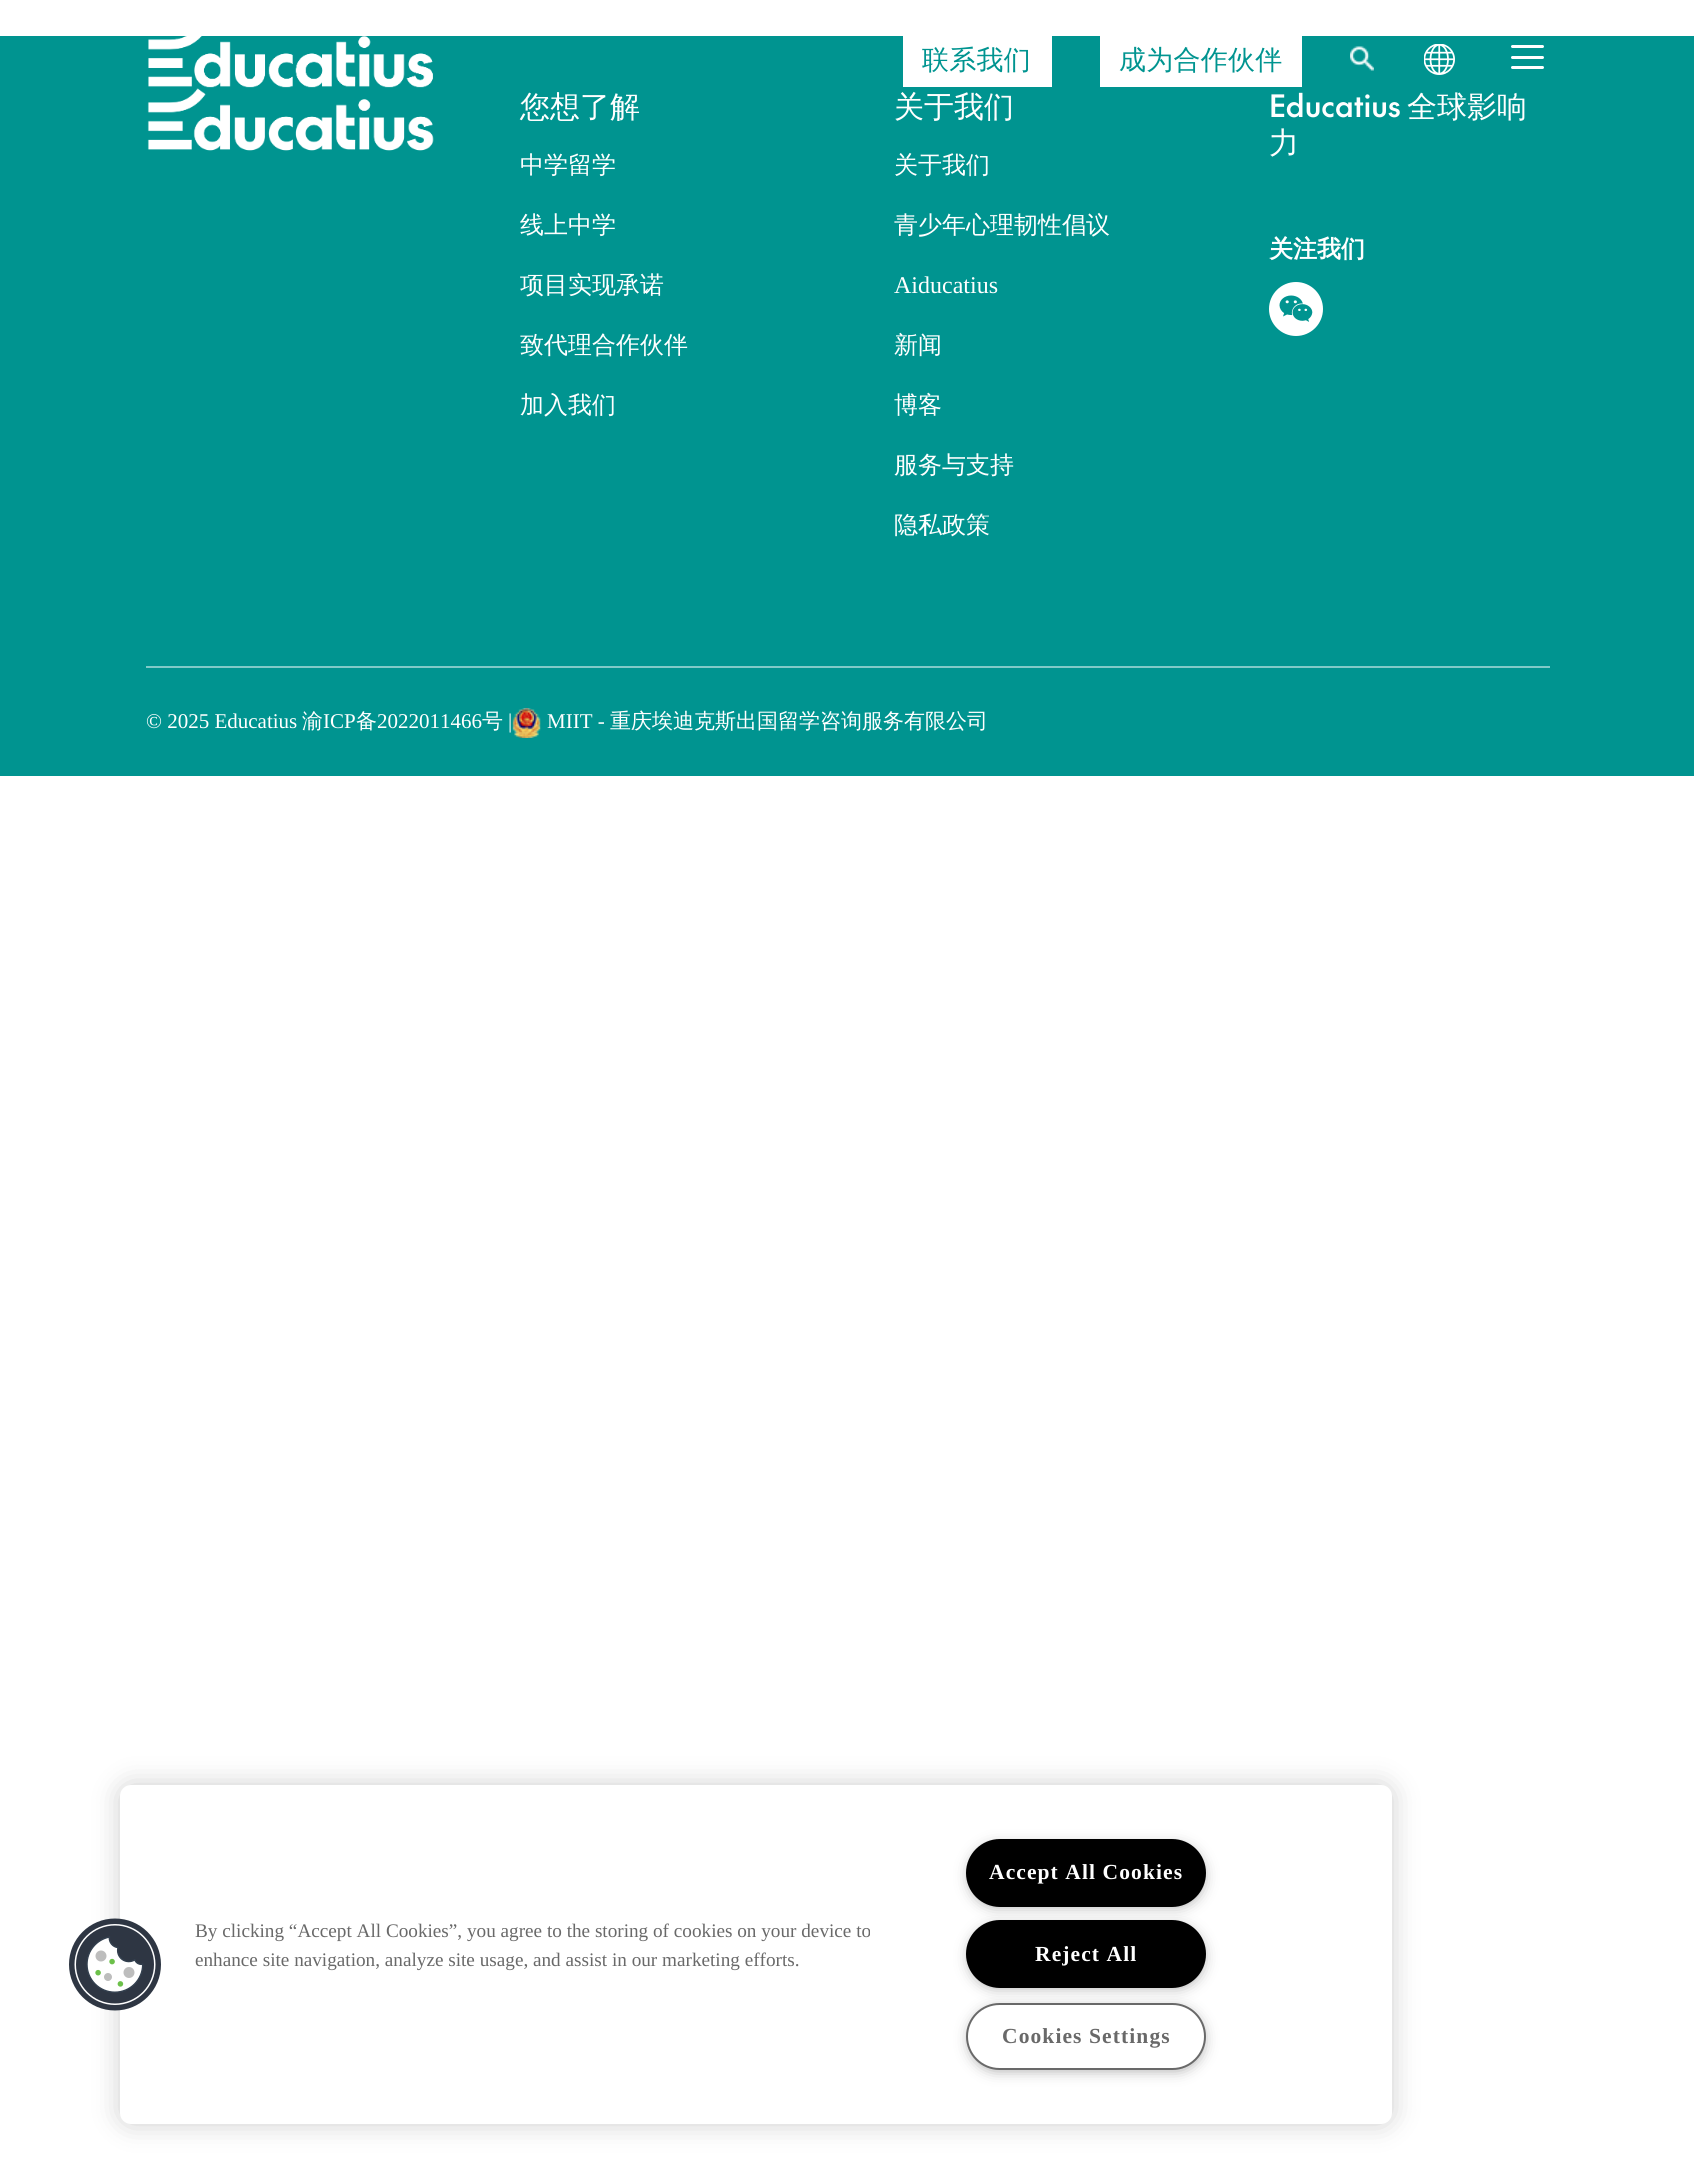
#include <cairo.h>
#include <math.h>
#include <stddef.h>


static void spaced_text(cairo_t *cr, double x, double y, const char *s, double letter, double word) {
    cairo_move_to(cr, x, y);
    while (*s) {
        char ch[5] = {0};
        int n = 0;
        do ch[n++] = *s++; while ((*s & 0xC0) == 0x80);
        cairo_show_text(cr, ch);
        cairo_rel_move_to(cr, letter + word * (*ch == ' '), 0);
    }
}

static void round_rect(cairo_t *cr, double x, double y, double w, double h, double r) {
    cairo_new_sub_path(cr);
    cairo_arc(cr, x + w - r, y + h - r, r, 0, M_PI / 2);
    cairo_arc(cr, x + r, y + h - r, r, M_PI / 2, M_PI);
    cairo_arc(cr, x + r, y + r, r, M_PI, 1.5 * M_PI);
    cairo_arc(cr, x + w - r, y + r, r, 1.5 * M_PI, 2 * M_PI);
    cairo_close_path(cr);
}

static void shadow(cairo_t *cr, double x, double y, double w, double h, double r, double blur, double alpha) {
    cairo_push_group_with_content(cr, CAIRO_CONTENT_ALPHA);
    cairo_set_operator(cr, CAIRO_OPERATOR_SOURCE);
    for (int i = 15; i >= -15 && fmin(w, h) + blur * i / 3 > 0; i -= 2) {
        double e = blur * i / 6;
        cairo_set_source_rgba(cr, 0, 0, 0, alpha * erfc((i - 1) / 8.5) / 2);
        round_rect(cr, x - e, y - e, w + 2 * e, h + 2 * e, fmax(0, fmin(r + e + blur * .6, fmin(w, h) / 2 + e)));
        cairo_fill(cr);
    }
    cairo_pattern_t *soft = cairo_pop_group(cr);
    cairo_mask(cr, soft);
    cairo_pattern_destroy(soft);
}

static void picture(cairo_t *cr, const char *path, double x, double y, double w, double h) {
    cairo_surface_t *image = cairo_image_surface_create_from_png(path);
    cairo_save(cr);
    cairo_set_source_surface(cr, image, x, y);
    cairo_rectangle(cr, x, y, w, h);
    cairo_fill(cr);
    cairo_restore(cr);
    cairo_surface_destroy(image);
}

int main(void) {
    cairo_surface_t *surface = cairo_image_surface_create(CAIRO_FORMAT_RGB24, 1694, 2172);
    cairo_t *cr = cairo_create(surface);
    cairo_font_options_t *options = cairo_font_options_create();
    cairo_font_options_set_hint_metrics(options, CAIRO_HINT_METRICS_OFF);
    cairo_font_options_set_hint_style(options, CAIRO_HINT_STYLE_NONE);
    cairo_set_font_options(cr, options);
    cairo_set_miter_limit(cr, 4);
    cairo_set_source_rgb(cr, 1, 1, 1);
    cairo_paint(cr);
    cairo_set_source_rgb(cr, 0, 0.58, 0.565);
    cairo_rectangle(cr, 0, 36, 1694, 740);
    cairo_fill(cr);
    picture(cr, "img1.png", 148, 36, 285, 52);
    cairo_set_source_rgb(cr, 1, 1, 1);
    cairo_rectangle(cr, 903, 36, 149, 51);
    cairo_fill(cr);
    cairo_select_font_face(cr, "WenQuanYi Zen Hei Medium", CAIRO_FONT_SLANT_NORMAL, CAIRO_FONT_WEIGHT_NORMAL);
    cairo_set_font_size(cr, 27);
    cairo_set_source_rgb(cr, 0, 0.58, 0.565);
    spaced_text(cr, 922, 69, "联系我们", 0.25, 0);
    cairo_set_source_rgb(cr, 1, 1, 1);
    cairo_rectangle(cr, 1100, 36, 202, 51);
    cairo_fill(cr);
    cairo_set_source_rgb(cr, 0, 0.58, 0.565);
    spaced_text(cr, 1119, 69, "成为合作伙伴", 0.25, 0);
    picture(cr, "img2.png", 1350, 46, 24, 25);
    picture(cr, "img3.png", 1424, 44, 31, 31);
    cairo_set_source_rgb(cr, 1, 1, 1);
    round_rect(cr, 1511, 45, 33, 3, 1.5);
    cairo_fill(cr);
    round_rect(cr, 1511, 56, 33, 3, 1.5);
    cairo_fill(cr);
    round_rect(cr, 1511, 66, 33, 3, 1.5);
    cairo_fill(cr);
    picture(cr, "img4.png", 147, 88, 287, 63);
    cairo_set_font_size(cr, 30);
    cairo_move_to(cr, 520, 117);
    cairo_show_text(cr, "您想了解");
    cairo_set_font_size(cr, 24);
    cairo_move_to(cr, 520, 173);
    cairo_show_text(cr, "中学留学");
    cairo_move_to(cr, 520, 233);
    cairo_show_text(cr, "线上中学");
    cairo_move_to(cr, 520, 293);
    cairo_show_text(cr, "项目实现承诺");
    cairo_move_to(cr, 520, 353);
    cairo_show_text(cr, "致代理合作伙伴");
    cairo_move_to(cr, 520, 413);
    cairo_show_text(cr, "加入我们");
    cairo_set_font_size(cr, 30);
    cairo_move_to(cr, 894, 117);
    cairo_show_text(cr, "关于我们");
    cairo_set_font_size(cr, 24);
    cairo_move_to(cr, 894, 173);
    cairo_show_text(cr, "关于我们");
    cairo_move_to(cr, 894, 233);
    cairo_show_text(cr, "青少年心理韧性倡议");
    cairo_select_font_face(cr, "Liberation Serif", CAIRO_FONT_SLANT_NORMAL, CAIRO_FONT_WEIGHT_NORMAL);
    cairo_move_to(cr, 894, 293);
    cairo_show_text(cr, "Aiducatius");
    cairo_select_font_face(cr, "WenQuanYi Zen Hei Medium", CAIRO_FONT_SLANT_NORMAL, CAIRO_FONT_WEIGHT_NORMAL);
    cairo_move_to(cr, 894, 353);
    cairo_show_text(cr, "新闻");
    cairo_move_to(cr, 894, 413);
    cairo_show_text(cr, "博客");
    cairo_move_to(cr, 894, 473);
    cairo_show_text(cr, "服务与支持");
    cairo_move_to(cr, 894, 533);
    cairo_show_text(cr, "隐私政策");
    cairo_select_font_face(cr, "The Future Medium", CAIRO_FONT_SLANT_NORMAL, CAIRO_FONT_WEIGHT_NORMAL);
    cairo_set_font_size(cr, 30);
    cairo_move_to(cr, 1269, 117);
    cairo_show_text(cr, "Educatius");
    cairo_select_font_face(cr, "WenQuanYi Zen Hei Medium", CAIRO_FONT_SLANT_NORMAL, CAIRO_FONT_WEIGHT_NORMAL);
    cairo_move_to(cr, 1407, 117);
    cairo_show_text(cr, "全球影响");
    cairo_move_to(cr, 1269, 153);
    cairo_show_text(cr, "力");
    cairo_select_font_face(cr, "WenQuanYi Zen Hei", CAIRO_FONT_SLANT_NORMAL, CAIRO_FONT_WEIGHT_BOLD);
    cairo_set_font_size(cr, 24);
    cairo_move_to(cr, 1269, 257);
    cairo_show_text(cr, "关注我们");
    picture(cr, "img5.png", 1269, 282, 54, 54);
    cairo_set_source_rgb(cr, 0.502, 0.792, 0.784);
    cairo_rectangle(cr, 146, 666, 1404, 2);
    cairo_fill(cr);
    cairo_select_font_face(cr, "Liberation Serif", CAIRO_FONT_SLANT_NORMAL, CAIRO_FONT_WEIGHT_NORMAL);
    cairo_set_font_size(cr, 21);
    cairo_set_source_rgb(cr, 1, 1, 1);
    cairo_move_to(cr, 146, 728);
    cairo_show_text(cr, "© 2025 Educatius");
    cairo_select_font_face(cr, "WenQuanYi Zen Hei Medium", CAIRO_FONT_SLANT_NORMAL, CAIRO_FONT_WEIGHT_NORMAL);
    cairo_move_to(cr, 302, 728);
    cairo_show_text(cr, "渝");
    cairo_select_font_face(cr, "Liberation Serif", CAIRO_FONT_SLANT_NORMAL, CAIRO_FONT_WEIGHT_NORMAL);
    cairo_move_to(cr, 323, 728);
    cairo_show_text(cr, "ICP");
    cairo_select_font_face(cr, "WenQuanYi Zen Hei Medium", CAIRO_FONT_SLANT_NORMAL, CAIRO_FONT_WEIGHT_NORMAL);
    cairo_move_to(cr, 356, 728);
    cairo_show_text(cr, "备");
    cairo_select_font_face(cr, "Liberation Serif", CAIRO_FONT_SLANT_NORMAL, CAIRO_FONT_WEIGHT_NORMAL);
    cairo_move_to(cr, 377, 728);
    cairo_show_text(cr, "2022011466");
    cairo_select_font_face(cr, "WenQuanYi Zen Hei Medium", CAIRO_FONT_SLANT_NORMAL, CAIRO_FONT_WEIGHT_NORMAL);
    cairo_move_to(cr, 482, 728);
    cairo_show_text(cr, "号");
    cairo_select_font_face(cr, "Liberation Serif", CAIRO_FONT_SLANT_NORMAL, CAIRO_FONT_WEIGHT_NORMAL);
    cairo_move_to(cr, 508, 728);
    cairo_show_text(cr, "|");
    picture(cr, "img6.png", 512, 708, 29, 30);
    cairo_move_to(cr, 547, 728);
    cairo_show_text(cr, "MIIT -");
    cairo_select_font_face(cr, "WenQuanYi Zen Hei Medium", CAIRO_FONT_SLANT_NORMAL, CAIRO_FONT_WEIGHT_NORMAL);
    cairo_move_to(cr, 610, 728);
    cairo_show_text(cr, "重庆埃迪克斯出国留学咨询服务有限公司");
    cairo_set_source_rgb(cr, 0, 0, 0);
    shadow(cr, 120, 1785, 1272, 339, 11, 13.5, 0.2);
    cairo_set_source_rgb(cr, 1, 1, 1);
    round_rect(cr, 120, 1785, 1272, 339, 11);
    cairo_fill(cr);
    picture(cr, "img7.png", 69, 1918, 92, 93);
    cairo_select_font_face(cr, "Liberation Serif", CAIRO_FONT_SLANT_NORMAL, CAIRO_FONT_WEIGHT_NORMAL);
    cairo_set_font_size(cr, 19.2);
    cairo_set_source_rgb(cr, 0.412, 0.412, 0.412);
    cairo_move_to(cr, 195, 1937);
    cairo_show_text(cr, "By clicking “Accept All Cookies”, you agree to the storing of cookies on your device to");
    cairo_move_to(cr, 195, 1966);
    cairo_show_text(cr, "enhance site navigation, analyze site usage, and assist in our marketing efforts.");
    cairo_set_source_rgb(cr, 0.6, 0.6, 0.6);
    shadow(cr, 971, 1847, 231, 58, 29, 7.5, 1);
    cairo_set_source_rgb(cr, 0, 0, 0);
    round_rect(cr, 967, 1840, 238, 66, 33);
    cairo_fill_preserve(cr);
    cairo_stroke(cr);
    cairo_select_font_face(cr, "Liberation Serif", CAIRO_FONT_SLANT_NORMAL, CAIRO_FONT_WEIGHT_BOLD);
    cairo_set_font_size(cr, 21.5);
    cairo_set_source_rgb(cr, 1, 1, 1);
    spaced_text(cr, 989, 1879, "Accept All Cookies", 1.1, 0);
    cairo_set_source_rgb(cr, 0.6, 0.6, 0.6);
    shadow(cr, 971, 1928, 231, 58, 29, 7.5, 1);
    cairo_set_source_rgb(cr, 0, 0, 0);
    round_rect(cr, 967, 1921, 238, 66, 33);
    cairo_fill_preserve(cr);
    cairo_stroke(cr);
    cairo_set_source_rgb(cr, 1, 1, 1);
    spaced_text(cr, 1035, 1961, "Reject All", 1.1, 0);
    cairo_set_source_rgb(cr, 0.6, 0.6, 0.6);
    shadow(cr, 971, 2010, 231, 59, 29.5, 7.5, 1);
    cairo_set_source_rgb(cr, 1, 1, 1);
    round_rect(cr, 967, 2004, 238, 65, 32.5);
    cairo_fill_preserve(cr);
    cairo_set_source_rgb(cr, 0.412, 0.412, 0.412);
    cairo_stroke(cr);
    spaced_text(cr, 1002, 2043, "Cookies Settings", 1.1, 0);
    cairo_surface_write_to_png(surface, "page.png");
    cairo_font_options_destroy(options);
    cairo_destroy(cr);
    cairo_surface_destroy(surface);
    return 0;
}
